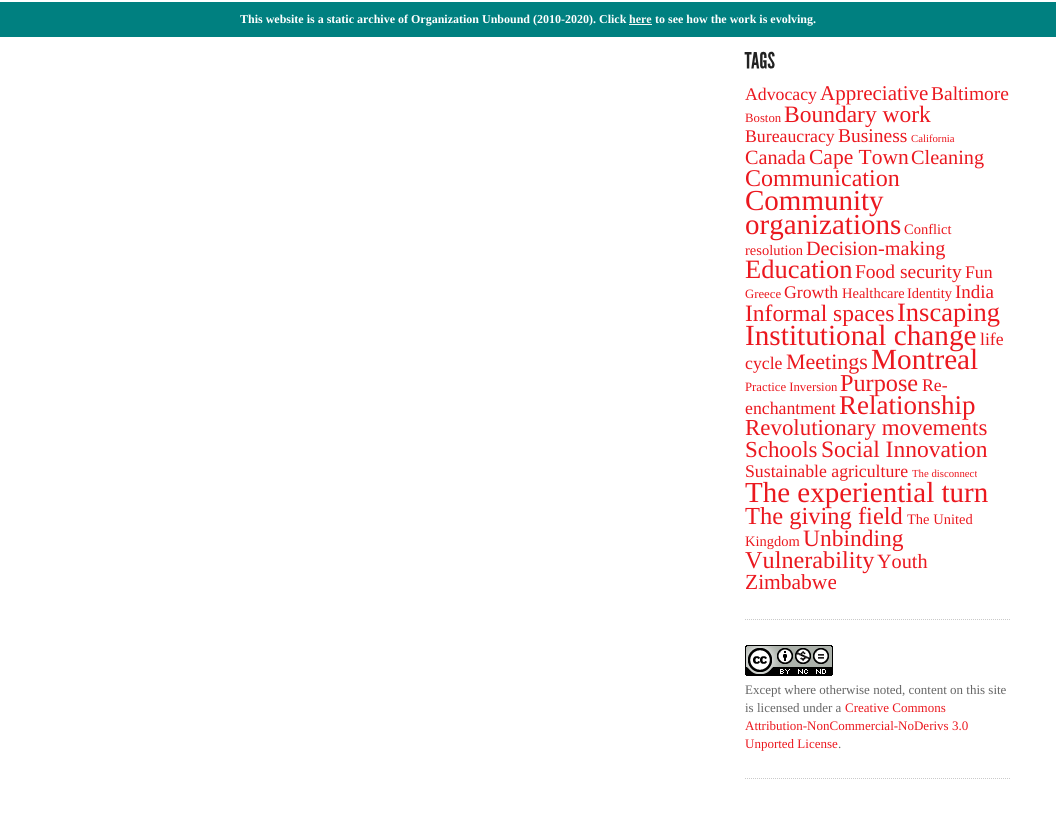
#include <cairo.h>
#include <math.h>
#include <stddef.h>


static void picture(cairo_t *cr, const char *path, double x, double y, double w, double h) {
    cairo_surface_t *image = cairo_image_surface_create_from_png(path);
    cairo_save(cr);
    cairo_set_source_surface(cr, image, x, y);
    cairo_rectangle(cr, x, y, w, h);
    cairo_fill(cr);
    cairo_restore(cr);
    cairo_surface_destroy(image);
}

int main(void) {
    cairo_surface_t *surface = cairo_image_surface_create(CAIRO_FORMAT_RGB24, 1056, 816);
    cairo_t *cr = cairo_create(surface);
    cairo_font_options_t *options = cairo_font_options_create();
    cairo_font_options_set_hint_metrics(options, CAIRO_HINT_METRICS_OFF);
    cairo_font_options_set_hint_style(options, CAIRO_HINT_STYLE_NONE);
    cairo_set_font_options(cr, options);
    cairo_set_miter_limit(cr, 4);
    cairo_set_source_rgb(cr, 1, 1, 1);
    cairo_paint(cr);
    cairo_set_source_rgb(cr, 0, 0.502, 0.502);
    cairo_rectangle(cr, 0, 2, 1056, 35);
    cairo_fill(cr);
    cairo_select_font_face(cr, "Liberation Serif", CAIRO_FONT_SLANT_NORMAL, CAIRO_FONT_WEIGHT_BOLD);
    cairo_set_font_size(cr, 12);
    cairo_set_source_rgb(cr, 1, 1, 1);
    cairo_move_to(cr, 240, 23);
    cairo_show_text(cr, "This website is a static archive of Organization Unbound (2010-2020). Click");
    cairo_set_source_rgb(cr, 0.98, 0.976, 0.965);
    cairo_rectangle(cr, 629, 24, 23, 1);
    cairo_fill(cr);
    cairo_move_to(cr, 629, 23);
    cairo_show_text(cr, "here");
    cairo_set_source_rgb(cr, 1, 1, 1);
    cairo_move_to(cr, 655, 23);
    cairo_show_text(cr, "to see how the work is evolving.");
    cairo_new_path(cr);
    cairo_move_to(cr, 745, 619.5);
    cairo_line_to(cr, 1010, 619.5);
    cairo_set_source_rgb(cr, 0.792, 0.792, 0.792);
    cairo_set_line_width(cr, 1);
    cairo_set_dash(cr, (double[]){1, 1}, 2, 0);
    cairo_stroke(cr);
    picture(cr, "img1.png", 744, 51, 31, 18);
    cairo_select_font_face(cr, "Liberation Serif", CAIRO_FONT_SLANT_NORMAL, CAIRO_FONT_WEIGHT_NORMAL);
    cairo_set_font_size(cr, 17.75);
    cairo_set_source_rgb(cr, 0.918, 0.094, 0.122);
    cairo_move_to(cr, 745, 100);
    cairo_show_text(cr, "Advocacy");
    cairo_set_font_size(cr, 21);
    cairo_move_to(cr, 820, 100);
    cairo_show_text(cr, "Appreciative");
    cairo_set_font_size(cr, 19.5);
    cairo_move_to(cr, 931, 100);
    cairo_show_text(cr, "Baltimore");
    cairo_set_font_size(cr, 12.75);
    cairo_move_to(cr, 745, 122);
    cairo_show_text(cr, "Boston");
    cairo_set_font_size(cr, 23.5);
    cairo_move_to(cr, 784, 122);
    cairo_show_text(cr, "Boundary work");
    cairo_set_font_size(cr, 17.75);
    cairo_move_to(cr, 745, 142);
    cairo_show_text(cr, "Bureaucracy");
    cairo_set_font_size(cr, 19.5);
    cairo_move_to(cr, 838, 142);
    cairo_show_text(cr, "Business");
    cairo_set_font_size(cr, 10.75);
    cairo_move_to(cr, 911, 142);
    cairo_show_text(cr, "California");
    cairo_set_font_size(cr, 20.25);
    cairo_move_to(cr, 745, 164);
    cairo_show_text(cr, "Canada");
    cairo_set_font_size(cr, 21.5);
    cairo_move_to(cr, 809, 164);
    cairo_show_text(cr, "Cape Town");
    cairo_set_font_size(cr, 20.25);
    cairo_move_to(cr, 911, 164);
    cairo_show_text(cr, "Cleaning");
    cairo_set_font_size(cr, 24);
    cairo_move_to(cr, 745, 186);
    cairo_show_text(cr, "Communication");
    cairo_set_font_size(cr, 29);
    cairo_move_to(cr, 745, 210);
    cairo_show_text(cr, "Community");
    cairo_move_to(cr, 745, 234);
    cairo_show_text(cr, "organizations");
    cairo_set_font_size(cr, 14.5);
    cairo_move_to(cr, 904, 234);
    cairo_show_text(cr, "Conflict");
    cairo_move_to(cr, 745, 255);
    cairo_show_text(cr, "resolution");
    cairo_set_font_size(cr, 20.25);
    cairo_move_to(cr, 806, 255);
    cairo_show_text(cr, "Decision-making");
    cairo_set_font_size(cr, 26.5);
    cairo_move_to(cr, 745, 278);
    cairo_show_text(cr, "Education");
    cairo_set_font_size(cr, 19.5);
    cairo_move_to(cr, 855, 278);
    cairo_show_text(cr, "Food security");
    cairo_set_font_size(cr, 17.75);
    cairo_move_to(cr, 965, 278);
    cairo_show_text(cr, "Fun");
    cairo_set_font_size(cr, 12.75);
    cairo_move_to(cr, 745, 298);
    cairo_show_text(cr, "Greece");
    cairo_set_font_size(cr, 17.75);
    cairo_move_to(cr, 784, 298);
    cairo_show_text(cr, "Growth");
    cairo_set_font_size(cr, 14.5);
    cairo_move_to(cr, 842, 298);
    cairo_show_text(cr, "Healthcare");
    cairo_move_to(cr, 907, 298);
    cairo_show_text(cr, "Identity");
    cairo_set_font_size(cr, 19);
    cairo_move_to(cr, 955, 298);
    cairo_show_text(cr, "India");
    cairo_set_font_size(cr, 23.5);
    cairo_move_to(cr, 745, 321);
    cairo_show_text(cr, "Informal spaces");
    cairo_set_font_size(cr, 26.5);
    cairo_move_to(cr, 897, 321);
    cairo_show_text(cr, "Inscaping");
    cairo_set_font_size(cr, 29.25);
    cairo_move_to(cr, 745, 345);
    cairo_show_text(cr, "Institutional change");
    cairo_set_font_size(cr, 17.75);
    cairo_move_to(cr, 980, 345);
    cairo_show_text(cr, "life");
    cairo_move_to(cr, 745, 369);
    cairo_show_text(cr, "cycle");
    cairo_set_font_size(cr, 22);
    cairo_move_to(cr, 786, 369);
    cairo_show_text(cr, "Meetings");
    cairo_set_font_size(cr, 29.25);
    cairo_move_to(cr, 871, 369);
    cairo_show_text(cr, "Montreal");
    cairo_set_font_size(cr, 12.75);
    cairo_move_to(cr, 745, 391);
    cairo_show_text(cr, "Practice Inversion");
    cairo_set_font_size(cr, 24.25);
    cairo_move_to(cr, 840, 391);
    cairo_show_text(cr, "Purpose");
    cairo_set_font_size(cr, 17.75);
    cairo_move_to(cr, 922, 391);
    cairo_show_text(cr, "Re-");
    cairo_move_to(cr, 745, 414);
    cairo_show_text(cr, "enchantment");
    cairo_set_font_size(cr, 27);
    cairo_move_to(cr, 839, 414);
    cairo_show_text(cr, "Relationship");
    cairo_set_font_size(cr, 22.9);
    cairo_move_to(cr, 745, 435);
    cairo_show_text(cr, "Revolutionary movements");
    cairo_move_to(cr, 745, 457);
    cairo_show_text(cr, "Schools");
    cairo_set_font_size(cr, 23.5);
    cairo_move_to(cr, 821, 457);
    cairo_show_text(cr, "Social Innovation");
    cairo_set_font_size(cr, 17.75);
    cairo_move_to(cr, 745, 477);
    cairo_show_text(cr, "Sustainable agriculture");
    cairo_set_font_size(cr, 10.75);
    cairo_move_to(cr, 912, 477);
    cairo_show_text(cr, "The disconnect");
    cairo_set_font_size(cr, 29);
    cairo_move_to(cr, 745, 502);
    cairo_show_text(cr, "The experiential turn");
    cairo_set_font_size(cr, 24.5);
    cairo_move_to(cr, 745, 524);
    cairo_show_text(cr, "The giving field");
    cairo_set_font_size(cr, 14.5);
    cairo_move_to(cr, 907, 524);
    cairo_show_text(cr, "The United");
    cairo_move_to(cr, 745, 546);
    cairo_show_text(cr, "Kingdom");
    cairo_set_font_size(cr, 23.5);
    cairo_move_to(cr, 803, 546);
    cairo_show_text(cr, "Unbinding");
    cairo_set_font_size(cr, 24.25);
    cairo_move_to(cr, 745, 568);
    cairo_show_text(cr, "Vulnerability");
    cairo_set_font_size(cr, 20.25);
    cairo_move_to(cr, 877, 568);
    cairo_show_text(cr, "Youth");
    cairo_set_font_size(cr, 21.5);
    cairo_move_to(cr, 745, 589);
    cairo_show_text(cr, "Zimbabwe");
    cairo_new_path(cr);
    cairo_move_to(cr, 745, 778.5);
    cairo_line_to(cr, 1010, 778.5);
    cairo_set_source_rgb(cr, 0.792, 0.792, 0.792);
    cairo_stroke(cr);
    picture(cr, "img2.png", 745, 645, 88, 31);
    cairo_set_font_size(cr, 13);
    cairo_set_source_rgb(cr, 0.4, 0.4, 0.4);
    cairo_move_to(cr, 745, 694);
    cairo_show_text(cr, "Except where otherwise noted, content on this site");
    cairo_move_to(cr, 745, 712);
    cairo_show_text(cr, "is licensed under a");
    cairo_set_source_rgb(cr, 0.918, 0.094, 0.122);
    cairo_move_to(cr, 845, 712);
    cairo_show_text(cr, "Creative Commons");
    cairo_move_to(cr, 745, 730);
    cairo_show_text(cr, "Attribution-NonCommercial-NoDerivs 3.0");
    cairo_move_to(cr, 745, 748);
    cairo_show_text(cr, "Unported License");
    cairo_set_source_rgb(cr, 0.4, 0.4, 0.4);
    cairo_move_to(cr, 838, 748);
    cairo_show_text(cr, ".");
    cairo_surface_write_to_png(surface, "page.png");
    cairo_font_options_destroy(options);
    cairo_destroy(cr);
    cairo_surface_destroy(surface);
    return 0;
}
